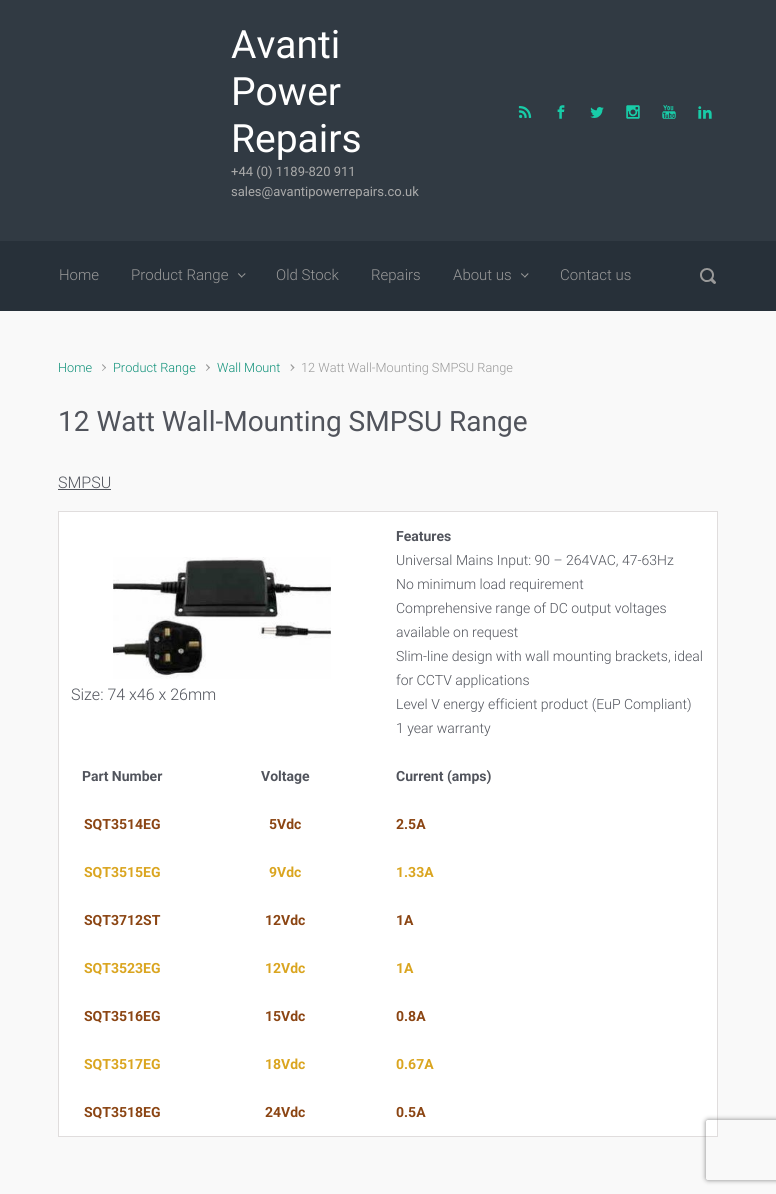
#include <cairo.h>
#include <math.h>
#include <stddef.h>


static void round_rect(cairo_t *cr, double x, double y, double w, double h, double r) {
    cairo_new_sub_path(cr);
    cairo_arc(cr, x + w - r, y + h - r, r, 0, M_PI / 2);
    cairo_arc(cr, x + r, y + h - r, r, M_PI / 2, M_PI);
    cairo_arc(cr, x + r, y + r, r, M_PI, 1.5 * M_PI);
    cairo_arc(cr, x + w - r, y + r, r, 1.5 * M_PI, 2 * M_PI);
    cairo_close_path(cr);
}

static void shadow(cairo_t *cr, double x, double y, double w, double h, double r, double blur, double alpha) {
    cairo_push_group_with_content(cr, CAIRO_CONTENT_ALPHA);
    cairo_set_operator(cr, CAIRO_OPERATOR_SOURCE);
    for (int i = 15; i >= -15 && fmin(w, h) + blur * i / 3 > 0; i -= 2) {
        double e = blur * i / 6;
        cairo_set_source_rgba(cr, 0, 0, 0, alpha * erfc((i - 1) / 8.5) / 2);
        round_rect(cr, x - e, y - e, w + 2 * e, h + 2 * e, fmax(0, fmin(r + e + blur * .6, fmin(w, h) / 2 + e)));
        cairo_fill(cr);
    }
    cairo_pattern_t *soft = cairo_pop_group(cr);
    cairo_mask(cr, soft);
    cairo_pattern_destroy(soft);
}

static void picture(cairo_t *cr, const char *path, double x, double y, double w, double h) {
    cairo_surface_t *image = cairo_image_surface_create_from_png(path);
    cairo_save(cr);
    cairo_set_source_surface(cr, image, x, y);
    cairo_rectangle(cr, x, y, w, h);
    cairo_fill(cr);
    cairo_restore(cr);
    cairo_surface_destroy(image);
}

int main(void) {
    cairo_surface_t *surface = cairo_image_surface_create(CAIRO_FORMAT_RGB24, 776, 1194);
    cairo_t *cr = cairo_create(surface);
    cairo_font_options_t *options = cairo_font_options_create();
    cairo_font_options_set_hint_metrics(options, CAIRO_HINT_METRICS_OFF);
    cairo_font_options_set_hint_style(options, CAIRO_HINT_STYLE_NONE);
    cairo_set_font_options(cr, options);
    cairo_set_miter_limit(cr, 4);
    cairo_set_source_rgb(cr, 0.976, 0.976, 0.976);
    cairo_paint(cr);
    cairo_set_source_rgb(cr, 0.192, 0.227, 0.263);
    cairo_rectangle(cr, 0, 0, 776, 241);
    cairo_fill(cr);
    cairo_select_font_face(cr, "Roboto", CAIRO_FONT_SLANT_NORMAL, CAIRO_FONT_WEIGHT_NORMAL);
    cairo_set_font_size(cr, 39);
    cairo_set_source_rgb(cr, 1, 1, 1);
    cairo_move_to(cr, 231, 58);
    cairo_show_text(cr, "Avanti");
    cairo_move_to(cr, 231, 105);
    cairo_show_text(cr, "Power");
    cairo_move_to(cr, 231, 152);
    cairo_show_text(cr, "Repairs");
    cairo_set_font_size(cr, 13);
    cairo_set_source_rgb(cr, 0.667, 0.667, 0.667);
    cairo_move_to(cr, 231, 176);
    cairo_show_text(cr, "+44 (0) 1189-820 911");
    cairo_move_to(cr, 231, 196);
    cairo_show_text(cr, "sales@avantipowerrepairs.co.uk");
    picture(cr, "img1.png", 518, 106, 14, 12);
    picture(cr, "img2.png", 557, 105, 8, 14);
    picture(cr, "img3.png", 590, 107, 14, 11);
    picture(cr, "img4.png", 626, 105, 14, 14);
    picture(cr, "img5.png", 662, 105, 14, 14);
    picture(cr, "img6.png", 698, 106, 14, 13);
    cairo_set_source_rgb(cr, 0.153, 0.188, 0.224);
    cairo_rectangle(cr, 0, 241, 776, 70);
    cairo_fill(cr);
    cairo_select_font_face(cr, "Roboto Light", CAIRO_FONT_SLANT_NORMAL, CAIRO_FONT_WEIGHT_NORMAL);
    cairo_set_font_size(cr, 15);
    cairo_set_source_rgb(cr, 0.6, 0.6, 0.6);
    cairo_move_to(cr, 59, 280);
    cairo_show_text(cr, "Home");
    cairo_move_to(cr, 131, 280);
    cairo_show_text(cr, "Product Range");
    cairo_new_path(cr);
    cairo_move_to(cr, 245, 273);
    cairo_line_to(cr, 245.5, 274);
    cairo_line_to(cr, 241.5, 277.5);
    cairo_line_to(cr, 241, 277);
    cairo_close_path(cr);
    cairo_fill(cr);
    cairo_new_path(cr);
    cairo_move_to(cr, 238.5, 273);
    cairo_line_to(cr, 242.5, 277);
    cairo_line_to(cr, 241.5, 277.5);
    cairo_line_to(cr, 238, 274);
    cairo_close_path(cr);
    cairo_fill(cr);
    cairo_move_to(cr, 276, 280);
    cairo_show_text(cr, "Old Stock");
    cairo_move_to(cr, 371, 280);
    cairo_show_text(cr, "Repairs");
    cairo_move_to(cr, 453, 280);
    cairo_show_text(cr, "About us");
    cairo_new_path(cr);
    cairo_move_to(cr, 528, 273);
    cairo_line_to(cr, 528.5, 274);
    cairo_line_to(cr, 525, 277.5);
    cairo_line_to(cr, 524, 277);
    cairo_close_path(cr);
    cairo_fill(cr);
    cairo_new_path(cr);
    cairo_move_to(cr, 521.5, 273);
    cairo_line_to(cr, 525.5, 277);
    cairo_line_to(cr, 525, 277.5);
    cairo_line_to(cr, 521, 274);
    cairo_close_path(cr);
    cairo_fill(cr);
    cairo_move_to(cr, 560, 280);
    cairo_show_text(cr, "Contact us");
    picture(cr, "img7.png", 700, 268, 16, 16);
    cairo_set_font_size(cr, 12.75);
    cairo_set_source_rgb(cr, 0.051, 0.565, 0.471);
    cairo_move_to(cr, 58, 372);
    cairo_show_text(cr, "Home");
    cairo_set_source_rgb(cr, 0.6, 0.6, 0.6);
    cairo_new_path(cr);
    cairo_move_to(cr, 102, 365);
    cairo_line_to(cr, 102.5, 364);
    cairo_line_to(cr, 106, 367.5);
    cairo_line_to(cr, 105.5, 368.5);
    cairo_close_path(cr);
    cairo_fill(cr);
    cairo_new_path(cr);
    cairo_move_to(cr, 102, 370.5);
    cairo_line_to(cr, 105.5, 367);
    cairo_line_to(cr, 106, 367.5);
    cairo_line_to(cr, 102.5, 371);
    cairo_close_path(cr);
    cairo_fill(cr);
    cairo_set_source_rgb(cr, 0.051, 0.565, 0.471);
    cairo_move_to(cr, 113, 372);
    cairo_show_text(cr, "Product Range");
    cairo_set_source_rgb(cr, 0.6, 0.6, 0.6);
    cairo_new_path(cr);
    cairo_move_to(cr, 206, 365);
    cairo_line_to(cr, 206.5, 364);
    cairo_line_to(cr, 210, 367.5);
    cairo_line_to(cr, 209, 368.5);
    cairo_close_path(cr);
    cairo_fill(cr);
    cairo_new_path(cr);
    cairo_move_to(cr, 206, 370.5);
    cairo_line_to(cr, 209, 367);
    cairo_line_to(cr, 210, 367.5);
    cairo_line_to(cr, 206.5, 371);
    cairo_close_path(cr);
    cairo_fill(cr);
    cairo_set_source_rgb(cr, 0.051, 0.565, 0.471);
    cairo_move_to(cr, 217, 372);
    cairo_show_text(cr, "Wall Mount");
    cairo_set_source_rgb(cr, 0.6, 0.6, 0.6);
    cairo_new_path(cr);
    cairo_move_to(cr, 290.5, 365);
    cairo_line_to(cr, 291, 364);
    cairo_line_to(cr, 294.5, 367.5);
    cairo_line_to(cr, 293.5, 368.5);
    cairo_close_path(cr);
    cairo_fill(cr);
    cairo_new_path(cr);
    cairo_move_to(cr, 290.5, 370.5);
    cairo_line_to(cr, 293.5, 367);
    cairo_line_to(cr, 294.5, 367.5);
    cairo_line_to(cr, 291, 371);
    cairo_close_path(cr);
    cairo_fill(cr);
    cairo_move_to(cr, 301, 372);
    cairo_show_text(cr, "12 Watt Wall-Mounting SMPSU Range");
    cairo_select_font_face(cr, "Roboto", CAIRO_FONT_SLANT_NORMAL, CAIRO_FONT_WEIGHT_NORMAL);
    cairo_set_font_size(cr, 28);
    cairo_set_source_rgb(cr, 0.318, 0.329, 0.361);
    cairo_move_to(cr, 58, 431);
    cairo_show_text(cr, "12 Watt Wall-Mounting SMPSU Range");
    cairo_select_font_face(cr, "Roboto Light", CAIRO_FONT_SLANT_NORMAL, CAIRO_FONT_WEIGHT_NORMAL);
    cairo_set_font_size(cr, 16);
    cairo_move_to(cr, 58, 488);
    cairo_show_text(cr, "SMPSU");
    cairo_rectangle(cr, 58, 489, 53, 1);
    cairo_fill(cr);
    cairo_set_source_rgb(cr, 1, 1, 1);
    cairo_rectangle(cr, 59, 512, 658, 624);
    cairo_fill(cr);
    cairo_set_source_rgb(cr, 0.878, 0.867, 0.867);
    cairo_rectangle(cr, 58, 511, 660, 1);
    cairo_fill(cr);
    cairo_rectangle(cr, 717, 511, 1, 626);
    cairo_fill(cr);
    cairo_rectangle(cr, 58, 1136, 660, 1);
    cairo_fill(cr);
    cairo_rectangle(cr, 58, 511, 1, 626);
    cairo_fill(cr);
    picture(cr, "img8.png", 113, 557, 218, 122);
    cairo_set_source_rgb(cr, 0.318, 0.329, 0.361);
    cairo_move_to(cr, 71, 700);
    cairo_show_text(cr, "Size: 74 x46 x 26mm");
    cairo_select_font_face(cr, "Roboto", CAIRO_FONT_SLANT_NORMAL, CAIRO_FONT_WEIGHT_BOLD);
    cairo_set_font_size(cr, 14);
    cairo_move_to(cr, 396, 541);
    cairo_show_text(cr, "Features");
    cairo_select_font_face(cr, "Roboto Light", CAIRO_FONT_SLANT_NORMAL, CAIRO_FONT_WEIGHT_NORMAL);
    cairo_move_to(cr, 396, 565);
    cairo_show_text(cr, "Universal Mains Input: 90 – 264VAC, 47-63Hz");
    cairo_move_to(cr, 396, 589);
    cairo_show_text(cr, "No minimum load requirement");
    cairo_move_to(cr, 396, 613);
    cairo_show_text(cr, "Comprehensive range of DC output voltages");
    cairo_move_to(cr, 396, 637);
    cairo_show_text(cr, "available on request");
    cairo_move_to(cr, 396, 661);
    cairo_show_text(cr, "Slim-line design with wall mounting brackets, ideal");
    cairo_move_to(cr, 396, 685);
    cairo_show_text(cr, "for CCTV applications");
    cairo_move_to(cr, 396, 709);
    cairo_show_text(cr, "Level V energy efficient product (EuP Compliant)");
    cairo_move_to(cr, 396, 733);
    cairo_show_text(cr, "1 year warranty");
    cairo_select_font_face(cr, "Roboto", CAIRO_FONT_SLANT_NORMAL, CAIRO_FONT_WEIGHT_BOLD);
    cairo_move_to(cr, 82, 781);
    cairo_show_text(cr, "Part Number");
    cairo_move_to(cr, 261, 781);
    cairo_show_text(cr, "Voltage");
    cairo_move_to(cr, 396, 781);
    cairo_show_text(cr, "Current (amps)");
    cairo_set_source_rgb(cr, 0.545, 0.271, 0.075);
    cairo_move_to(cr, 84, 829);
    cairo_show_text(cr, "SQT3514EG");
    cairo_move_to(cr, 269, 829);
    cairo_show_text(cr, "5Vdc");
    cairo_move_to(cr, 396, 829);
    cairo_show_text(cr, "2.5A");
    cairo_set_source_rgb(cr, 0.855, 0.647, 0.125);
    cairo_move_to(cr, 84, 877);
    cairo_show_text(cr, "SQT3515EG");
    cairo_move_to(cr, 269, 877);
    cairo_show_text(cr, "9Vdc");
    cairo_move_to(cr, 396, 877);
    cairo_show_text(cr, "1.33A");
    cairo_set_source_rgb(cr, 0.545, 0.271, 0.075);
    cairo_move_to(cr, 84, 925);
    cairo_show_text(cr, "SQT3712ST");
    cairo_move_to(cr, 265, 925);
    cairo_show_text(cr, "12Vdc");
    cairo_move_to(cr, 396, 925);
    cairo_show_text(cr, "1A");
    cairo_set_source_rgb(cr, 0.855, 0.647, 0.125);
    cairo_move_to(cr, 84, 973);
    cairo_show_text(cr, "SQT3523EG");
    cairo_move_to(cr, 265, 973);
    cairo_show_text(cr, "12Vdc");
    cairo_move_to(cr, 396, 973);
    cairo_show_text(cr, "1A");
    cairo_set_source_rgb(cr, 0.545, 0.271, 0.075);
    cairo_move_to(cr, 84, 1021);
    cairo_show_text(cr, "SQT3516EG");
    cairo_move_to(cr, 265, 1021);
    cairo_show_text(cr, "15Vdc");
    cairo_move_to(cr, 396, 1021);
    cairo_show_text(cr, "0.8A");
    cairo_set_source_rgb(cr, 0.855, 0.647, 0.125);
    cairo_move_to(cr, 84, 1069);
    cairo_show_text(cr, "SQT3517EG");
    cairo_move_to(cr, 265, 1069);
    cairo_show_text(cr, "18Vdc");
    cairo_move_to(cr, 396, 1069);
    cairo_show_text(cr, "0.67A");
    cairo_set_source_rgb(cr, 0.545, 0.271, 0.075);
    cairo_move_to(cr, 84, 1117);
    cairo_show_text(cr, "SQT3518EG");
    cairo_move_to(cr, 265, 1117);
    cairo_show_text(cr, "24Vdc");
    cairo_move_to(cr, 396, 1117);
    cairo_show_text(cr, "0.5A");
    cairo_save(cr);
    cairo_set_fill_rule(cr, CAIRO_FILL_RULE_EVEN_ODD);
    cairo_new_path(cr);
    cairo_move_to(cr, 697, 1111);
    cairo_line_to(cr, 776, 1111);
    cairo_line_to(cr, 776, 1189);
    cairo_line_to(cr, 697, 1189);
    cairo_close_path(cr);
    cairo_move_to(cr, 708, 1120);
    cairo_line_to(cr, 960, 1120);
    cairo_curve_to(cr, 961, 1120, 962, 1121, 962, 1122);
    cairo_line_to(cr, 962, 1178);
    cairo_curve_to(cr, 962, 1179, 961, 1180, 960, 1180);
    cairo_line_to(cr, 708, 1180);
    cairo_curve_to(cr, 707, 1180, 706, 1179, 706, 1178);
    cairo_line_to(cr, 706, 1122);
    cairo_curve_to(cr, 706, 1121, 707, 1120, 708, 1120);
    cairo_close_path(cr);
    cairo_clip(cr);
    cairo_set_source_rgb(cr, 0.502, 0.502, 0.502);
    shadow(cr, 706, 1120, 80, 60, 2, 2.5, 1);
    cairo_restore(cr);
    cairo_surface_write_to_png(surface, "page.png");
    cairo_font_options_destroy(options);
    cairo_destroy(cr);
    cairo_surface_destroy(surface);
    return 0;
}
